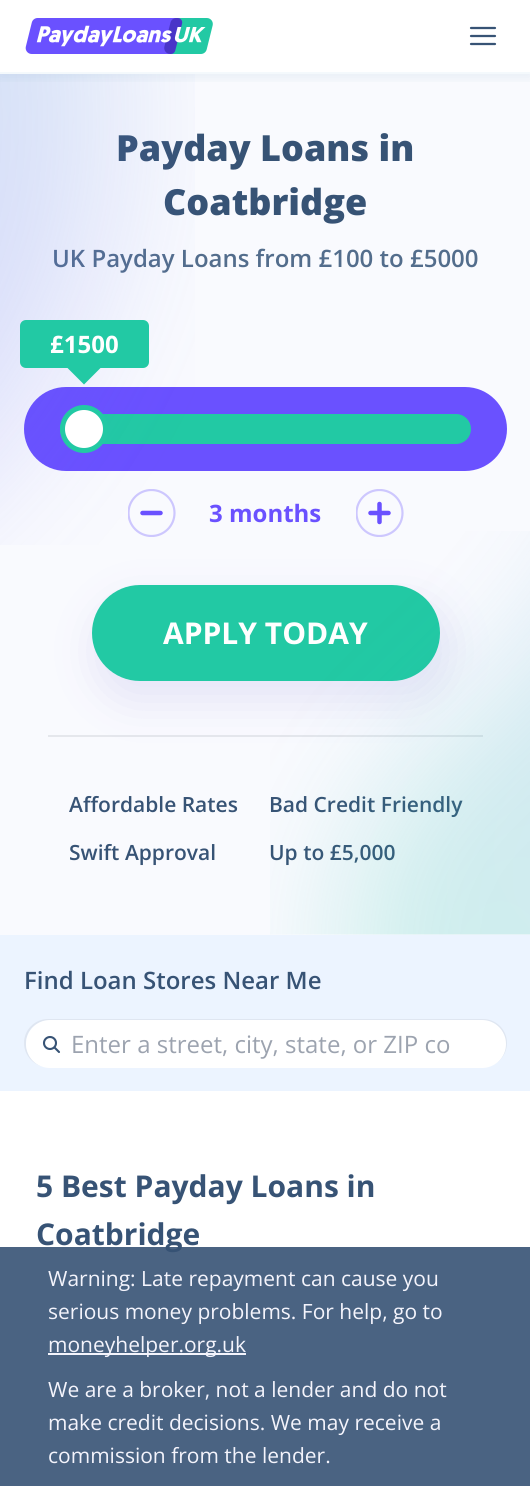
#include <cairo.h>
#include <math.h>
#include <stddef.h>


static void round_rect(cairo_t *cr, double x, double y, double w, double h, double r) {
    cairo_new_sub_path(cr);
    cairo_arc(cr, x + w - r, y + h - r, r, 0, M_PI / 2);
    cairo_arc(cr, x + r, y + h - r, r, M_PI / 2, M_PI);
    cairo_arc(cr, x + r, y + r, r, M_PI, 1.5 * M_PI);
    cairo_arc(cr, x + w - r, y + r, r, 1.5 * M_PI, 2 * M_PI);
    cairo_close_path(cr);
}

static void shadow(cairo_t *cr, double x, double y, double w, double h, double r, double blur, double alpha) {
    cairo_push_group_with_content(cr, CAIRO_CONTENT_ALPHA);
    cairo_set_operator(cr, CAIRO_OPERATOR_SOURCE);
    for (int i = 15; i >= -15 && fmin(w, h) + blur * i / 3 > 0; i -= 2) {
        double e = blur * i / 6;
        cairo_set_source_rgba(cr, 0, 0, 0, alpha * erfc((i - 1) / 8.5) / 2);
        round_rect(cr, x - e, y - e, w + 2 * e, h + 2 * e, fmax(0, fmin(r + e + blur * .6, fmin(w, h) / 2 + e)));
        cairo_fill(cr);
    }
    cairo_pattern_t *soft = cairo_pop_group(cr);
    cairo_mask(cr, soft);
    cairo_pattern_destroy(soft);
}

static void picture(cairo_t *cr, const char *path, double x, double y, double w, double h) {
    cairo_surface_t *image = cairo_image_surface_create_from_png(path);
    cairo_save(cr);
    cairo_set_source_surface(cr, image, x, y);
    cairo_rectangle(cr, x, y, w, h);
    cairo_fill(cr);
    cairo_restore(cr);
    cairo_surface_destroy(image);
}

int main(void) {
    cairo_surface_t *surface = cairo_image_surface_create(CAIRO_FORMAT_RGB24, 530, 1486);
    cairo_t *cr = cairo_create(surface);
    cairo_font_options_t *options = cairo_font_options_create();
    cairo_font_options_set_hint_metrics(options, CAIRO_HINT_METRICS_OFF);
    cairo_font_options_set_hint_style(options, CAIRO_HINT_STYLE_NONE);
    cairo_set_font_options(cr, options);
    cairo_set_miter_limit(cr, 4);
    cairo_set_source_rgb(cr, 1, 1, 1);
    cairo_paint(cr);
    cairo_set_source_rgb(cr, 0.973, 0.98, 0.996);
    cairo_rectangle(cr, 0, 74, 530, 861);
    cairo_fill(cr);
    cairo_select_font_face(cr, "Open Sans ExtraBold", CAIRO_FONT_SLANT_NORMAL, CAIRO_FONT_WEIGHT_NORMAL);
    cairo_set_font_size(cr, 36);
    cairo_set_source_rgb(cr, 0.216, 0.325, 0.459);
    cairo_move_to(cr, 116, 161);
    cairo_show_text(cr, "Payday Loans in");
    cairo_move_to(cr, 163, 215);
    cairo_show_text(cr, "Coatbridge");
    cairo_select_font_face(cr, "Open Sans SemiBold", CAIRO_FONT_SLANT_NORMAL, CAIRO_FONT_WEIGHT_NORMAL);
    cairo_set_font_size(cr, 24);
    cairo_set_source_rgb(cr, 0.325, 0.427, 0.549);
    cairo_move_to(cr, 52, 267);
    cairo_show_text(cr, "UK Payday Loans from £100 to £5000");
    cairo_set_source_rgb(cr, 0.416, 0.318, 1);
    round_rect(cr, 24, 387, 483, 84, 42);
    cairo_fill(cr);
    cairo_set_source_rgb(cr, 0.133, 0.788, 0.643);
    round_rect(cr, 60, 414, 411, 30, 15);
    cairo_fill(cr);
    cairo_set_source_rgb(cr, 0.898, 0.906, 0.922);
    cairo_rectangle(cr, 48, 735, 435, 2);
    cairo_fill(cr);
    cairo_set_source_rgb(cr, 0.286, 0.208, 0.753);
    shadow(cr, 98, 603, 348, 96, 48, 24, 0.12);
    cairo_save(cr);
    cairo_rectangle(cr, 128, 489, 48, 48);
    cairo_clip(cr);
    cairo_arc(cr, 151.5, 513, 23, 0, 2 * M_PI);
    cairo_set_source_rgb(cr, 0.804, 0.78, 0.996);
    cairo_set_line_width(cr, 2.2);
    cairo_stroke(cr);
    cairo_restore(cr);
    cairo_new_path(cr);
    cairo_move_to(cr, 142.5, 513);
    cairo_line_to(cr, 160.5, 513);
    cairo_set_source_rgb(cr, 0.416, 0.318, 1);
    cairo_set_line_width(cr, 4.5);
    cairo_set_line_cap(cr, CAIRO_LINE_CAP_ROUND);
    cairo_stroke(cr);
    picture(cr, "img2.png", 0, 74, 195, 471);
    cairo_save(cr);
    cairo_rectangle(cr, 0, 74, 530, 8);
    cairo_clip(cr);
    cairo_set_source_rgb(cr, 0, 0.314, 0.49);
    shadow(cr, 0, 3, 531, 74, 0, 7.5, 0.08);
    cairo_restore(cr);
    cairo_set_source_rgb(cr, 0.957, 0.973, 0.988);
    cairo_rectangle(cr, 0, 72, 530, 2);
    cairo_fill(cr);
    picture(cr, "img1.png", 25, 18, 188, 36);
    cairo_new_path(cr);
    cairo_move_to(cr, 471, 28);
    cairo_line_to(cr, 495, 28);
    cairo_move_to(cr, 471, 36);
    cairo_line_to(cr, 495, 36);
    cairo_move_to(cr, 471, 44);
    cairo_line_to(cr, 495, 44);
    cairo_set_source_rgb(cr, 0.216, 0.325, 0.459);
    cairo_set_line_width(cr, 2.2);
    cairo_stroke(cr);
    cairo_save(cr);
    cairo_rectangle(cr, 356, 489, 48, 48);
    cairo_clip(cr);
    cairo_arc(cr, 379.5, 513, 23, 0, 2 * M_PI);
    cairo_set_source_rgb(cr, 0.804, 0.78, 0.996);
    cairo_set_line_cap(cr, CAIRO_LINE_CAP_BUTT);
    cairo_stroke(cr);
    cairo_restore(cr);
    cairo_set_source_rgb(cr, 0.133, 0.788, 0.643);
    round_rect(cr, 92, 585, 348, 96, 48);
    cairo_fill(cr);
    cairo_select_font_face(cr, "Open Sans", CAIRO_FONT_SLANT_NORMAL, CAIRO_FONT_WEIGHT_BOLD);
    cairo_set_font_size(cr, 30);
    cairo_set_source_rgb(cr, 1, 1, 1);
    cairo_move_to(cr, 163, 644);
    cairo_show_text(cr, "APPLY TODAY");
    cairo_select_font_face(cr, "Open Sans SemiBold", CAIRO_FONT_SLANT_NORMAL, CAIRO_FONT_WEIGHT_NORMAL);
    cairo_set_font_size(cr, 21);
    cairo_set_source_rgb(cr, 0.216, 0.325, 0.459);
    cairo_move_to(cr, 269, 812);
    cairo_show_text(cr, "Bad Credit Friendly");
    cairo_move_to(cr, 269, 860);
    cairo_show_text(cr, "Up to £5,000");
    picture(cr, "img3.png", 270, 531, 260, 404);
    cairo_set_source_rgb(cr, 1, 1, 1);
    cairo_arc(cr, 84, 429, 21.5, 0, 2 * M_PI);
    cairo_fill_preserve(cr);
    cairo_set_source_rgb(cr, 0.133, 0.788, 0.643);
    cairo_set_line_width(cr, 5);
    cairo_set_line_cap(cr, CAIRO_LINE_CAP_BUTT);
    cairo_stroke(cr);
    round_rect(cr, 20, 320, 129, 48, 6);
    cairo_fill(cr);
    cairo_select_font_face(cr, "Open Sans", CAIRO_FONT_SLANT_NORMAL, CAIRO_FONT_WEIGHT_BOLD);
    cairo_set_font_size(cr, 24);
    cairo_set_source_rgb(cr, 1, 1, 1);
    cairo_move_to(cr, 50, 353);
    cairo_show_text(cr, "£1500");
    cairo_set_source_rgb(cr, 0.133, 0.788, 0.643);
    cairo_new_path(cr);
    cairo_move_to(cr, 66, 366.5);
    cairo_line_to(cr, 102, 366.5);
    cairo_line_to(cr, 84, 384.5);
    cairo_close_path(cr);
    cairo_fill(cr);
    cairo_set_source_rgb(cr, 0.416, 0.318, 1);
    cairo_move_to(cr, 209, 522);
    cairo_show_text(cr, "3 months");
    cairo_new_path(cr);
    cairo_move_to(cr, 370.5, 513);
    cairo_line_to(cr, 388.5, 513);
    cairo_move_to(cr, 379.5, 522);
    cairo_line_to(cr, 379.5, 504);
    cairo_set_line_width(cr, 4.5);
    cairo_set_line_cap(cr, CAIRO_LINE_CAP_ROUND);
    cairo_stroke(cr);
    cairo_select_font_face(cr, "Open Sans SemiBold", CAIRO_FONT_SLANT_NORMAL, CAIRO_FONT_WEIGHT_NORMAL);
    cairo_set_font_size(cr, 21);
    cairo_set_source_rgb(cr, 0.216, 0.325, 0.459);
    cairo_move_to(cr, 69, 812);
    cairo_show_text(cr, "Affordable Rates");
    cairo_move_to(cr, 69, 860);
    cairo_show_text(cr, "Swift Approval");
    cairo_set_source_rgb(cr, 0.925, 0.957, 1);
    cairo_rectangle(cr, 0, 935, 530, 156);
    cairo_fill(cr);
    cairo_set_font_size(cr, 24);
    cairo_set_source_rgb(cr, 0.216, 0.325, 0.459);
    cairo_move_to(cr, 24, 989);
    cairo_show_text(cr, "Find Loan Stores Near Me");
    round_rect(cr, 25, 1020, 481, 46, 23);
    cairo_set_source_rgb(cr, 0.875, 0.902, 0.945);
    cairo_set_line_width(cr, 2);
    cairo_set_line_cap(cr, CAIRO_LINE_CAP_BUTT);
    cairo_stroke(cr);
    cairo_set_source_rgb(cr, 1, 1, 1);
    round_rect(cr, 26, 1020, 480, 48, 24);
    cairo_fill(cr);
    cairo_arc(cr, 50, 1043, 6, 0, 2 * M_PI);
    cairo_set_source_rgb(cr, 0.216, 0.325, 0.459);
    cairo_set_line_width(cr, 2.1);
    cairo_stroke(cr);
    cairo_new_path(cr);
    cairo_move_to(cr, 55, 1048);
    cairo_line_to(cr, 59, 1052);
    cairo_set_line_cap(cr, CAIRO_LINE_CAP_ROUND);
    cairo_stroke(cr);
    cairo_select_font_face(cr, "Open Sans", CAIRO_FONT_SLANT_NORMAL, CAIRO_FONT_WEIGHT_NORMAL);
    cairo_set_source_rgb(cr, 0.612, 0.639, 0.686);
    cairo_move_to(cr, 71, 1053);
    cairo_show_text(cr, "Enter a street, city, state, or ZIP co");
    cairo_select_font_face(cr, "Open Sans", CAIRO_FONT_SLANT_NORMAL, CAIRO_FONT_WEIGHT_BOLD);
    cairo_set_font_size(cr, 30);
    cairo_set_source_rgb(cr, 0.216, 0.325, 0.459);
    cairo_move_to(cr, 36, 1197);
    cairo_show_text(cr, "5 Best Payday Loans in");
    cairo_move_to(cr, 36, 1245);
    cairo_show_text(cr, "Coatbridge");
    cairo_set_source_rgba(cr, 0.216, 0.325, 0.459, 0.9);
    cairo_rectangle(cr, 0, 1247, 530, 239);
    cairo_fill(cr);
    cairo_select_font_face(cr, "Open Sans", CAIRO_FONT_SLANT_NORMAL, CAIRO_FONT_WEIGHT_NORMAL);
    cairo_set_font_size(cr, 21);
    cairo_set_source_rgb(cr, 0.957, 0.957, 0.988);
    cairo_move_to(cr, 48, 1286);
    cairo_show_text(cr, "Warning: Late repayment can cause you");
    cairo_move_to(cr, 48, 1319);
    cairo_show_text(cr, "serious money problems. For help, go to");
    cairo_rectangle(cr, 48, 1353, 198, 2);
    cairo_fill(cr);
    cairo_move_to(cr, 48, 1352);
    cairo_show_text(cr, "moneyhelper.org.uk");
    cairo_move_to(cr, 48, 1397);
    cairo_show_text(cr, "We are a broker, not a lender and do not");
    cairo_move_to(cr, 48, 1430);
    cairo_show_text(cr, "make credit decisions. We may receive a");
    cairo_move_to(cr, 48, 1463);
    cairo_show_text(cr, "commission from the lender.");
    cairo_surface_write_to_png(surface, "page.png");
    cairo_font_options_destroy(options);
    cairo_destroy(cr);
    cairo_surface_destroy(surface);
    return 0;
}
